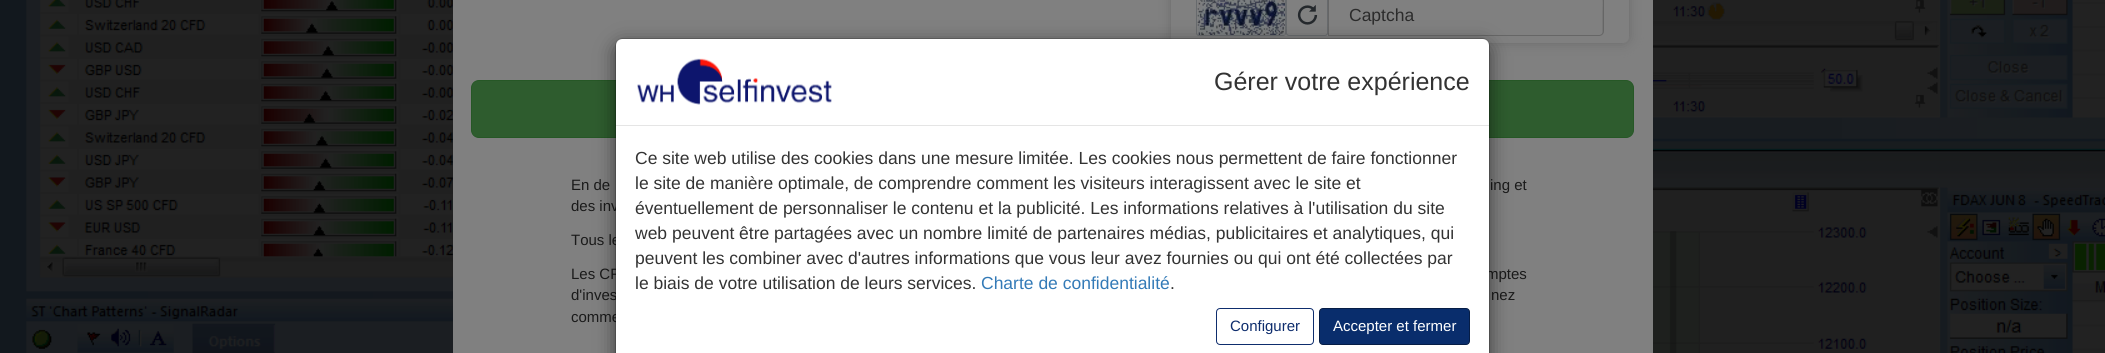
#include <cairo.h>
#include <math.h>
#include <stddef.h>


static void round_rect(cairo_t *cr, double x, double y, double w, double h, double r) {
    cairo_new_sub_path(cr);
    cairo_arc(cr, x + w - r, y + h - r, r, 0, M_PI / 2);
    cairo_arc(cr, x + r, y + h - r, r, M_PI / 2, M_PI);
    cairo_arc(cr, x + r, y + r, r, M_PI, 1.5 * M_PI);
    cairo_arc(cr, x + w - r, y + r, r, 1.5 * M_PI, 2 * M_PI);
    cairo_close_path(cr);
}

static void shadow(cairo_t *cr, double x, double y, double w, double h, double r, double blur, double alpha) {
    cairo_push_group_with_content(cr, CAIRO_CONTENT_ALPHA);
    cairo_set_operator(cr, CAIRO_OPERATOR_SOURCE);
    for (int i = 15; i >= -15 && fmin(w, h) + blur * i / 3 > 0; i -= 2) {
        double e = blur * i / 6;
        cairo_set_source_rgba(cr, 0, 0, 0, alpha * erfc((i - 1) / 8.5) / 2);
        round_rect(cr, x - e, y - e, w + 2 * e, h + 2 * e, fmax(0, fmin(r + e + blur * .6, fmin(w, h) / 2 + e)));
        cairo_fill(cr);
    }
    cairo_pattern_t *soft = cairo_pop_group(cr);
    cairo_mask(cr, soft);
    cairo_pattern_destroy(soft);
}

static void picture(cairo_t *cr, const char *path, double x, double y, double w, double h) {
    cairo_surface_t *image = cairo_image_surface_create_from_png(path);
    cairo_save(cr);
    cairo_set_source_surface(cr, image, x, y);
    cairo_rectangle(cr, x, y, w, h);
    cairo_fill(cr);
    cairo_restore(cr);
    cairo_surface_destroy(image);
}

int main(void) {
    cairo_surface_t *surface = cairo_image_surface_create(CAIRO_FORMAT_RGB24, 2105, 353);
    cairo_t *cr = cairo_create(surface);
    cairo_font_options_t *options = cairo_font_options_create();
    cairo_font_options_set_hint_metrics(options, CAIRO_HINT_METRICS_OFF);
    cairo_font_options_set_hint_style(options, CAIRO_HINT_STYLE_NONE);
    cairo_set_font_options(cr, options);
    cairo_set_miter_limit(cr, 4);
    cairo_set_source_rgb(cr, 1, 1, 1);
    cairo_paint(cr);
    picture(cr, "img1.png", 0, 0, 2105, 353);
    cairo_set_source_rgb(cr, 0.502, 0.502, 0.502);
    cairo_rectangle(cr, 453, 0, 1200, 353);
    cairo_fill(cr);
    cairo_set_source_rgb(cr, 0.416, 0.416, 0.416);
    shadow(cr, 1171, -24, 458, 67, 6, 6, 1);
    cairo_set_source_rgb(cr, 0.502, 0.502, 0.502);
    round_rect(cr, 1171, -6, 458, 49, 6);
    cairo_fill(cr);
    round_rect(cr, 1196.5, -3.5, 89, 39, 2.5);
    cairo_set_source_rgb(cr, 0.404, 0.416, 0.427);
    cairo_set_line_width(cr, 1);
    cairo_stroke(cr);
    picture(cr, "img2.png", 1197, 0, 88, 35);
    round_rect(cr, 1286.5, -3.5, 41, 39, 2.5);
    cairo_stroke(cr);
    picture(cr, "img3.png", 1297, 5, 21, 20);
    cairo_set_source_rgb(cr, 0.463, 0.463, 0.463);
    cairo_new_path(cr);
    cairo_move_to(cr, 1329, -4);
    cairo_line_to(cr, 1599, -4);
    cairo_curve_to(cr, 1604, -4, 1602, 9, 1602, 11);
    cairo_line_to(cr, 1602, 34);
    cairo_curve_to(cr, 1603, 33, 1603, 32, 1603, 31);
    cairo_line_to(cr, 1603, -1);
    cairo_curve_to(cr, 1603, -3, 1601, -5, 1599, -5);
    cairo_line_to(cr, 1329, -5);
    cairo_close_path(cr);
    cairo_fill(cr);
    cairo_new_path(cr);
    cairo_move_to(cr, 1328.5, -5.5);
    cairo_line_to(cr, 1599, -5.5);
    cairo_curve_to(cr, 1601.5, -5.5, 1603.5, -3.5, 1603.5, -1);
    cairo_line_to(cr, 1603.5, 31);
    cairo_curve_to(cr, 1603.5, 33.5, 1601.5, 35.5, 1599, 35.5);
    cairo_line_to(cr, 1328.5, 35.5);
    cairo_close_path(cr);
    cairo_set_source_rgb(cr, 0.4, 0.4, 0.4);
    cairo_stroke(cr);
    cairo_select_font_face(cr, "Liberation Sans", CAIRO_FONT_SLANT_NORMAL, CAIRO_FONT_WEIGHT_NORMAL);
    cairo_set_font_size(cr, 17.5);
    cairo_set_source_rgb(cr, 0.169, 0.169, 0.169);
    cairo_move_to(cr, 1349, 21);
    cairo_show_text(cr, "Captcha");
    cairo_set_source_rgb(cr, 0.18, 0.361, 0.18);
    round_rect(cr, 471.5, 80.5, 1162, 57, 7.5);
    cairo_fill_preserve(cr);
    cairo_set_source_rgb(cr, 0.149, 0.341, 0.149);
    cairo_stroke(cr);
    cairo_set_font_size(cr, 15);
    cairo_set_source_rgb(cr, 0.102, 0.102, 0.102);
    cairo_move_to(cr, 571, 190);
    cairo_show_text(cr, "En de");
    cairo_move_to(cr, 1490, 190);
    cairo_show_text(cr, "ing et");
    cairo_move_to(cr, 571, 211);
    cairo_show_text(cr, "des inv");
    cairo_move_to(cr, 571, 245);
    cairo_show_text(cr, "Tous le");
    cairo_move_to(cr, 571, 279);
    cairo_show_text(cr, "Les CF");
    cairo_move_to(cr, 1486, 279);
    cairo_show_text(cr, "mptes");
    cairo_move_to(cr, 571, 300);
    cairo_show_text(cr, "d'inves");
    cairo_move_to(cr, 1491, 300);
    cairo_show_text(cr, "nez");
    cairo_move_to(cr, 571, 322);
    cairo_show_text(cr, "comme");
    cairo_set_source_rgb(cr, 0, 0, 0);
    shadow(cr, 615, 44, 875, 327, 8, 9.5, 0.5);
    cairo_set_source_rgb(cr, 1, 1, 1);
    cairo_new_path(cr);
    cairo_move_to(cr, 622, 39);
    cairo_line_to(cr, 1483, 39);
    cairo_curve_to(cr, 1486.5, 39, 1489, 41.5, 1489, 45);
    cairo_line_to(cr, 1489, 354);
    cairo_line_to(cr, 616, 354);
    cairo_line_to(cr, 616, 45);
    cairo_curve_to(cr, 616, 41.5, 618.5, 39, 622, 39);
    cairo_close_path(cr);
    cairo_fill(cr);
    round_rect(cr, 615.5, 38.5, 874, 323, 7.5);
    cairo_set_source_rgba(cr, 0, 0, 0, 0.2);
    cairo_stroke(cr);
    cairo_set_source_rgb(cr, 0.898, 0.898, 0.898);
    cairo_rectangle(cr, 616, 125, 873, 1);
    cairo_fill(cr);
    picture(cr, "img4.png", 637, 58, 195, 47);
    cairo_set_font_size(cr, 25);
    cairo_set_source_rgb(cr, 0.2, 0.2, 0.2);
    cairo_move_to(cr, 1214, 90);
    cairo_show_text(cr, "Gérer votre expérience");
    cairo_set_font_size(cr, 17.5);
    cairo_move_to(cr, 635, 164);
    cairo_show_text(cr, "Ce site web utilise des cookies dans une mesure limitée. Les cookies nous permettent de faire fonctionner");
    cairo_move_to(cr, 635, 189);
    cairo_show_text(cr, "le site de manière optimale, de comprendre comment les visiteurs interagissent avec le site et");
    cairo_move_to(cr, 635, 214);
    cairo_show_text(cr, "éventuellement de personnaliser le contenu et la publicité. Les informations relatives à l'utilisation du site");
    cairo_move_to(cr, 635, 239);
    cairo_show_text(cr, "web peuvent être partagées avec un nombre limité de partenaires médias, publicitaires et analytiques, qui");
    cairo_move_to(cr, 635, 264);
    cairo_show_text(cr, "peuvent les combiner avec d'autres informations que vous leur avez fournies ou qui ont été collectées par");
    cairo_move_to(cr, 635, 289);
    cairo_show_text(cr, "le biais de votre utilisation de leurs services.");
    cairo_set_source_rgb(cr, 0.2, 0.478, 0.718);
    cairo_move_to(cr, 981, 289);
    cairo_show_text(cr, "Charte de confidentialité");
    cairo_set_source_rgb(cr, 0.2, 0.2, 0.2);
    cairo_move_to(cr, 1170, 289);
    cairo_show_text(cr, ".");
    round_rect(cr, 1216.5, 308.5, 97, 36, 3.5);
    cairo_set_source_rgb(cr, 0.055, 0.176, 0.427);
    cairo_stroke(cr);
    cairo_set_font_size(cr, 15);
    cairo_move_to(cr, 1230, 331);
    cairo_show_text(cr, "Configurer");
    cairo_set_source_rgb(cr, 0.039, 0.176, 0.424);
    round_rect(cr, 1319.5, 308.5, 150, 36, 3.5);
    cairo_fill_preserve(cr);
    cairo_set_source_rgb(cr, 0.024, 0.114, 0.275);
    cairo_stroke(cr);
    cairo_set_source_rgb(cr, 1, 1, 1);
    cairo_move_to(cr, 1333, 331);
    cairo_show_text(cr, "Accepter et fermer");
    cairo_surface_write_to_png(surface, "page.png");
    cairo_font_options_destroy(options);
    cairo_destroy(cr);
    cairo_surface_destroy(surface);
    return 0;
}
